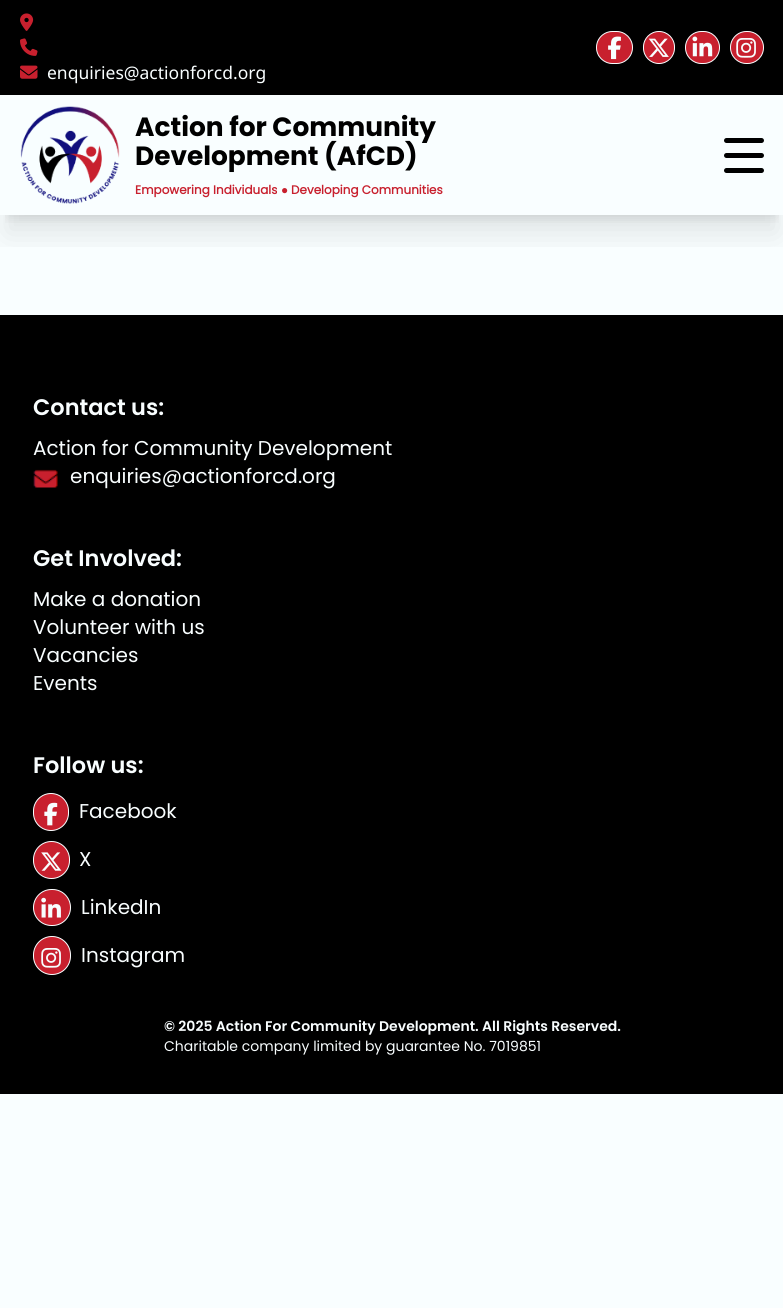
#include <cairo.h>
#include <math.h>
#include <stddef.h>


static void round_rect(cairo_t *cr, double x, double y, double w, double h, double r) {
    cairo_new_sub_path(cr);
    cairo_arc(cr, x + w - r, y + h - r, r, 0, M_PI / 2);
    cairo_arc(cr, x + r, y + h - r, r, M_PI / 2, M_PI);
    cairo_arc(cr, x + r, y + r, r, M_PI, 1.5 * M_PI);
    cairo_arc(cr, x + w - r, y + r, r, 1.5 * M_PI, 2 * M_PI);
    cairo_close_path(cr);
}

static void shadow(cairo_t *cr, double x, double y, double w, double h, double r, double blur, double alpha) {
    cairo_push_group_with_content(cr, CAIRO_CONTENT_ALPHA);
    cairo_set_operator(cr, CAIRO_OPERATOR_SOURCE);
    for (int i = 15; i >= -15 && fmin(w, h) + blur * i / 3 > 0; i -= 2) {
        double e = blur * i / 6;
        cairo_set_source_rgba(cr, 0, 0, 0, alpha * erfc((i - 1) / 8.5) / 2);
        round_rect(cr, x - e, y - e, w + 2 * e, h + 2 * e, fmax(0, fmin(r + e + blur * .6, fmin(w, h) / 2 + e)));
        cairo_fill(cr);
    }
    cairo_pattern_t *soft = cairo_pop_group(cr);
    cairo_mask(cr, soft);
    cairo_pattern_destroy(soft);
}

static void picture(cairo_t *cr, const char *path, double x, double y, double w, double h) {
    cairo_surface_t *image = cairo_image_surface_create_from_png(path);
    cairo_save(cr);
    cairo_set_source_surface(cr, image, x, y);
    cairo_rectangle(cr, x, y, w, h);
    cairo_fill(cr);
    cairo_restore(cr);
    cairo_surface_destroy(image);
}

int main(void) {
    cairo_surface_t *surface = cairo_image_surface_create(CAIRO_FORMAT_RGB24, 783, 1308);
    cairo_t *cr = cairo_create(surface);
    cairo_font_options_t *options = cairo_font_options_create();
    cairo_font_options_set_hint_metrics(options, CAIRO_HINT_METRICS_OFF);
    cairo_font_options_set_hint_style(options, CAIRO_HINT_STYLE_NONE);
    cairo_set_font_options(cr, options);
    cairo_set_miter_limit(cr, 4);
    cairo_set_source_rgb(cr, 0.973, 0.996, 1);
    cairo_paint(cr);
    cairo_set_source_rgb(cr, 0, 0, 0);
    cairo_rectangle(cr, 0, 0, 783, 95);
    cairo_fill(cr);
    cairo_set_source_rgb(cr, 0.784, 0.125, 0.18);
    round_rect(cr, 596.5, 31.5, 36, 32, 16);
    cairo_fill_preserve(cr);
    cairo_set_source_rgb(cr, 0.973, 0.996, 1);
    cairo_set_line_width(cr, 1);
    cairo_stroke(cr);
    picture(cr, "img1.png", 608, 36, 13, 24);
    cairo_set_source_rgb(cr, 0.784, 0.125, 0.18);
    round_rect(cr, 643.5, 31.5, 31, 32, 15.5);
    cairo_fill_preserve(cr);
    cairo_set_source_rgb(cr, 0.973, 0.996, 1);
    cairo_stroke(cr);
    picture(cr, "img2.png", 648, 38, 21, 19);
    cairo_set_source_rgb(cr, 0.784, 0.125, 0.18);
    round_rect(cr, 685.5, 31.5, 34, 32, 16);
    cairo_fill_preserve(cr);
    cairo_set_source_rgb(cr, 0.973, 0.996, 1);
    cairo_stroke(cr);
    picture(cr, "img3.png", 692, 36, 21, 21);
    cairo_set_source_rgb(cr, 0.784, 0.125, 0.18);
    round_rect(cr, 730.5, 31.5, 33, 32, 16);
    cairo_fill_preserve(cr);
    cairo_set_source_rgb(cr, 0.973, 0.996, 1);
    cairo_stroke(cr);
    picture(cr, "img4.png", 736, 38, 20, 20);
    picture(cr, "img5.png", 20, 13, 14, 18);
    picture(cr, "img6.png", 20, 38, 18, 18);
    picture(cr, "img7.png", 20, 65, 18, 14);
    cairo_select_font_face(cr, "Noto Sans", CAIRO_FONT_SLANT_NORMAL, CAIRO_FONT_WEIGHT_NORMAL);
    cairo_set_font_size(cr, 17.5);
    cairo_move_to(cr, 47, 79);
    cairo_show_text(cr, "enquiries@actionforcd.org");
    cairo_save(cr);
    cairo_rectangle(cr, 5, 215, 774, 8);
    cairo_clip(cr);
    cairo_set_source_rgb(cr, 0, 0, 0);
    shadow(cr, 8, 113, 768, 105, 0, 6, 0.1);
    cairo_restore(cr);
    cairo_save(cr);
    cairo_rectangle(cr, 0, 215, 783, 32);
    cairo_clip(cr);
    cairo_set_source_rgb(cr, 0, 0, 0);
    shadow(cr, 6, 126, 772, 108, 0, 15.5, 0.1);
    cairo_restore(cr);
    picture(cr, "img8.png", 20, 106, 100, 98);
    cairo_select_font_face(cr, "Poppins", CAIRO_FONT_SLANT_NORMAL, CAIRO_FONT_WEIGHT_BOLD);
    cairo_set_font_size(cr, 26.4);
    cairo_set_source_rgb(cr, 0, 0, 0);
    cairo_move_to(cr, 135, 136);
    cairo_show_text(cr, "Action for Community");
    cairo_move_to(cr, 135, 165);
    cairo_show_text(cr, "Development (AfCD)");
    cairo_select_font_face(cr, "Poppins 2", CAIRO_FONT_SLANT_NORMAL, CAIRO_FONT_WEIGHT_BOLD);
    cairo_set_font_size(cr, 12);
    cairo_set_source_rgb(cr, 0.784, 0.125, 0.18);
    cairo_move_to(cr, 135, 194);
    cairo_show_text(cr, "Empowering Individuals");
    cairo_select_font_face(cr, "Liberation Serif", CAIRO_FONT_SLANT_NORMAL, CAIRO_FONT_WEIGHT_BOLD);
    cairo_move_to(cr, 281, 194);
    cairo_show_text(cr, "●");
    cairo_select_font_face(cr, "Poppins 2", CAIRO_FONT_SLANT_NORMAL, CAIRO_FONT_WEIGHT_BOLD);
    cairo_move_to(cr, 291, 194);
    cairo_show_text(cr, "Developing Communities");
    cairo_set_source_rgb(cr, 0, 0, 0);
    round_rect(cr, 724, 153, 40, 5, 2.5);
    cairo_fill(cr);
    round_rect(cr, 724, 138, 40, 5, 2.5);
    cairo_fill(cr);
    round_rect(cr, 724, 168, 40, 5, 2.5);
    cairo_fill(cr);
    cairo_rectangle(cr, 0, 315, 783, 779);
    cairo_fill(cr);
    cairo_select_font_face(cr, "Poppins SemiBold", CAIRO_FONT_SLANT_NORMAL, CAIRO_FONT_WEIGHT_NORMAL);
    cairo_set_font_size(cr, 22.5);
    cairo_set_source_rgb(cr, 0.973, 0.996, 1);
    cairo_move_to(cr, 33, 415);
    cairo_show_text(cr, "Contact us:");
    cairo_select_font_face(cr, "Poppins", CAIRO_FONT_SLANT_NORMAL, CAIRO_FONT_WEIGHT_NORMAL);
    cairo_set_font_size(cr, 20);
    cairo_move_to(cr, 33, 455);
    cairo_show_text(cr, "Action for Community Development");
    picture(cr, "img9.png", 33, 469, 25, 19);
    cairo_move_to(cr, 70, 483);
    cairo_show_text(cr, "enquiries@actionforcd.org");
    cairo_select_font_face(cr, "Poppins SemiBold", CAIRO_FONT_SLANT_NORMAL, CAIRO_FONT_WEIGHT_NORMAL);
    cairo_set_font_size(cr, 22.5);
    cairo_move_to(cr, 33, 566);
    cairo_show_text(cr, "Get Involved:");
    cairo_select_font_face(cr, "Poppins", CAIRO_FONT_SLANT_NORMAL, CAIRO_FONT_WEIGHT_NORMAL);
    cairo_set_font_size(cr, 20);
    cairo_move_to(cr, 33, 606);
    cairo_show_text(cr, "Make a donation");
    cairo_move_to(cr, 33, 634);
    cairo_show_text(cr, "Volunteer with us");
    cairo_move_to(cr, 33, 662);
    cairo_show_text(cr, "Vacancies");
    cairo_move_to(cr, 33, 690);
    cairo_show_text(cr, "Events");
    cairo_select_font_face(cr, "Poppins SemiBold", CAIRO_FONT_SLANT_NORMAL, CAIRO_FONT_WEIGHT_NORMAL);
    cairo_set_font_size(cr, 22.5);
    cairo_move_to(cr, 33, 773);
    cairo_show_text(cr, "Follow us:");
    cairo_set_source_rgb(cr, 0.784, 0.125, 0.18);
    round_rect(cr, 33.5, 793.5, 35, 37, 17.5);
    cairo_fill_preserve(cr);
    cairo_set_source_rgb(cr, 0.973, 0.996, 1);
    cairo_stroke(cr);
    picture(cr, "img10.png", 44, 802, 14, 24);
    cairo_select_font_face(cr, "Poppins", CAIRO_FONT_SLANT_NORMAL, CAIRO_FONT_WEIGHT_NORMAL);
    cairo_set_font_size(cr, 20);
    cairo_move_to(cr, 79, 818);
    cairo_show_text(cr, "Facebook");
    cairo_set_source_rgb(cr, 0.784, 0.125, 0.18);
    round_rect(cr, 33.5, 841.5, 36, 37, 18);
    cairo_fill_preserve(cr);
    cairo_set_source_rgb(cr, 0.973, 0.996, 1);
    cairo_stroke(cr);
    picture(cr, "img11.png", 41, 852, 21, 19);
    cairo_move_to(cr, 79, 866);
    cairo_show_text(cr, "X");
    cairo_set_source_rgb(cr, 0.784, 0.125, 0.18);
    round_rect(cr, 33.5, 889.5, 37, 36, 18);
    cairo_fill_preserve(cr);
    cairo_set_source_rgb(cr, 0.973, 0.996, 1);
    cairo_stroke(cr);
    picture(cr, "img12.png", 41, 897, 20, 21);
    cairo_move_to(cr, 81, 914);
    cairo_show_text(cr, "LinkedIn");
    cairo_set_source_rgb(cr, 0.784, 0.125, 0.18);
    round_rect(cr, 33.5, 936.5, 37, 38, 18.5);
    cairo_fill_preserve(cr);
    cairo_set_source_rgb(cr, 0.973, 0.996, 1);
    cairo_stroke(cr);
    picture(cr, "img4.png", 41, 948, 20, 20);
    cairo_move_to(cr, 81, 962);
    cairo_show_text(cr, "Instagram");
    cairo_select_font_face(cr, "Poppins SemiBold", CAIRO_FONT_SLANT_NORMAL, CAIRO_FONT_WEIGHT_NORMAL);
    cairo_set_font_size(cr, 14);
    cairo_move_to(cr, 164, 1031);
    cairo_show_text(cr, "© 2025 Action For Community Development. All Rights Reserved.");
    cairo_select_font_face(cr, "Poppins", CAIRO_FONT_SLANT_NORMAL, CAIRO_FONT_WEIGHT_NORMAL);
    cairo_move_to(cr, 164, 1051);
    cairo_show_text(cr, "Charitable company limited by guarantee No. 7019851");
    cairo_surface_write_to_png(surface, "page.png");
    cairo_font_options_destroy(options);
    cairo_destroy(cr);
    cairo_surface_destroy(surface);
    return 0;
}
